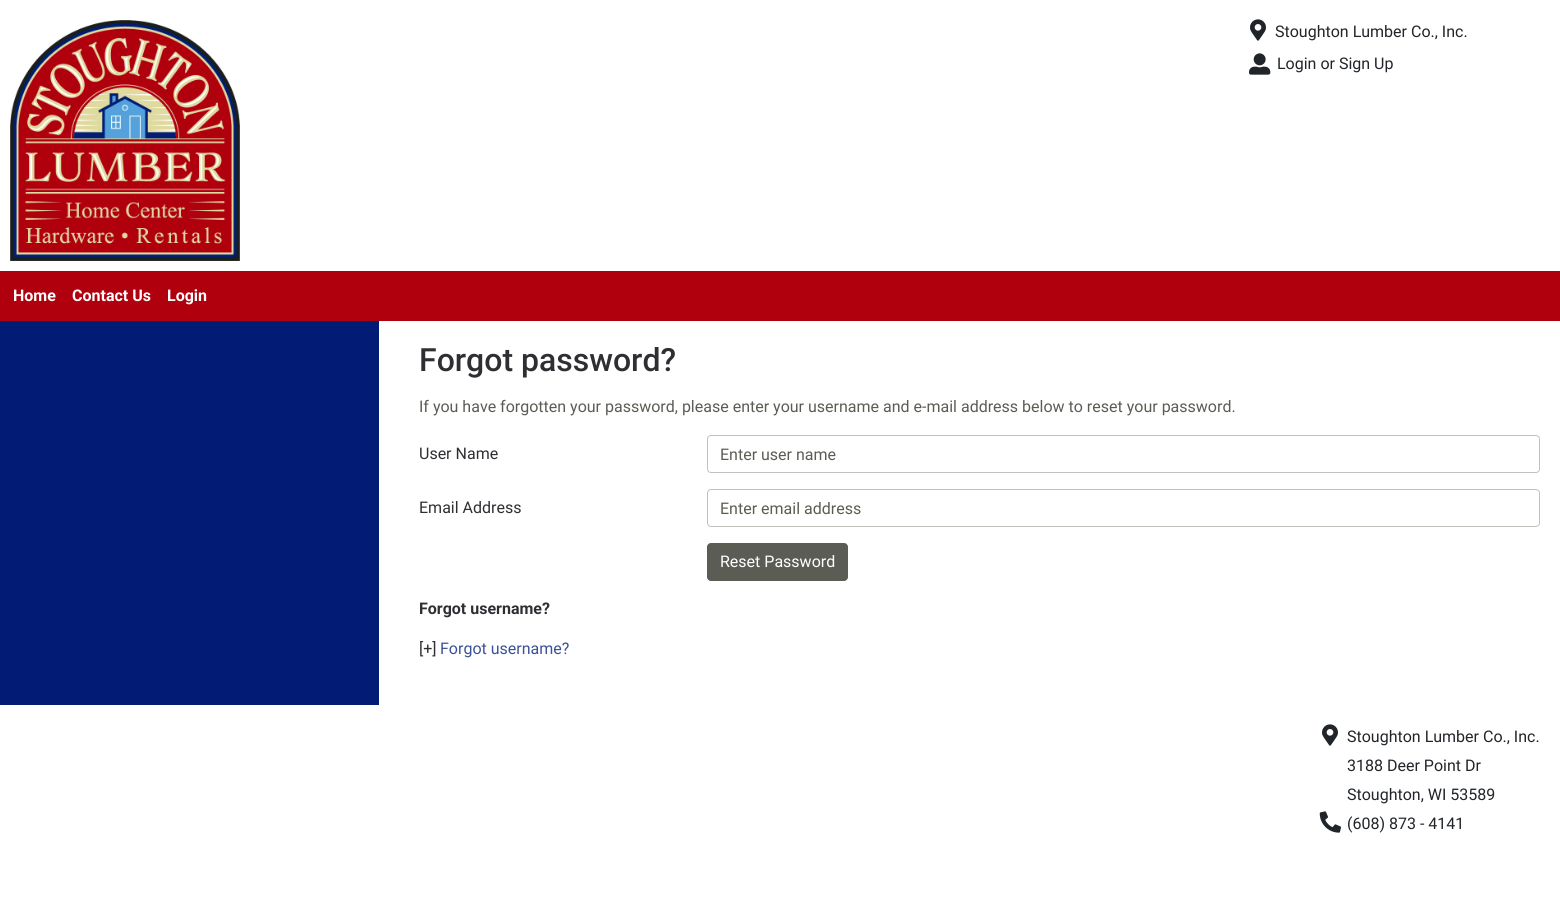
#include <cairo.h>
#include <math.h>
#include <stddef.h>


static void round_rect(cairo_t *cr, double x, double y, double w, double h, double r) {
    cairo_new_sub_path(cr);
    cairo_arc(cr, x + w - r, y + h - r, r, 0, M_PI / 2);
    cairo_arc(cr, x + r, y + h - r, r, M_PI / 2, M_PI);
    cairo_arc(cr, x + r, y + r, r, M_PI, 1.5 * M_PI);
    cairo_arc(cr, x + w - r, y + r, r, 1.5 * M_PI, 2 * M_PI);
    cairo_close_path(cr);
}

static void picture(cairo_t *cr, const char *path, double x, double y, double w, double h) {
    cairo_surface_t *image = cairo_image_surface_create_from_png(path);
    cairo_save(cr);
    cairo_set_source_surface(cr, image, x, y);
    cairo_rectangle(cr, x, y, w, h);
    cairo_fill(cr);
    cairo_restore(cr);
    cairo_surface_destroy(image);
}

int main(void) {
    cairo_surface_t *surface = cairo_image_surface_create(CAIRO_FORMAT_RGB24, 1560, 920);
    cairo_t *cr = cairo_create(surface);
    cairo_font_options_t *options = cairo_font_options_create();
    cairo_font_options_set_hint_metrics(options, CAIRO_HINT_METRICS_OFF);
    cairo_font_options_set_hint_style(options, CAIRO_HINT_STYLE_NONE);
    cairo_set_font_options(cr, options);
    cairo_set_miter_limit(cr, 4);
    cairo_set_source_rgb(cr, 1, 1, 1);
    cairo_paint(cr);
    picture(cr, "img1.png", 10, 20, 230, 241);
    picture(cr, "img2.png", 1250, 19, 16, 22);
    cairo_select_font_face(cr, "Roboto", CAIRO_FONT_SLANT_NORMAL, CAIRO_FONT_WEIGHT_NORMAL);
    cairo_set_font_size(cr, 16);
    cairo_set_source_rgb(cr, 0.129, 0.145, 0.161);
    cairo_move_to(cr, 1275, 37);
    cairo_show_text(cr, "Stoughton Lumber Co., Inc.");
    picture(cr, "img3.png", 1249, 53, 22, 22);
    cairo_move_to(cr, 1277, 69);
    cairo_show_text(cr, "Login or Sign Up");
    cairo_set_source_rgb(cr, 0.69, 0, 0.055);
    cairo_rectangle(cr, 0, 271, 1560, 50);
    cairo_fill(cr);
    cairo_select_font_face(cr, "Roboto", CAIRO_FONT_SLANT_NORMAL, CAIRO_FONT_WEIGHT_BOLD);
    cairo_set_source_rgb(cr, 1, 1, 1);
    cairo_move_to(cr, 13, 301);
    cairo_show_text(cr, "Home");
    cairo_move_to(cr, 72, 301);
    cairo_show_text(cr, "Contact Us");
    cairo_move_to(cr, 167, 301);
    cairo_show_text(cr, "Login");
    cairo_set_source_rgb(cr, 0.008, 0.11, 0.459);
    cairo_rectangle(cr, 0, 321, 379, 384);
    cairo_fill(cr);
    cairo_select_font_face(cr, "Roboto Medium", CAIRO_FONT_SLANT_NORMAL, CAIRO_FONT_WEIGHT_NORMAL);
    cairo_set_font_size(cr, 32);
    cairo_set_source_rgb(cr, 0.184, 0.18, 0.2);
    cairo_move_to(cr, 419, 371);
    cairo_show_text(cr, "Forgot password?");
    cairo_select_font_face(cr, "Roboto", CAIRO_FONT_SLANT_NORMAL, CAIRO_FONT_WEIGHT_NORMAL);
    cairo_set_font_size(cr, 16);
    cairo_set_source_rgb(cr, 0.357, 0.365, 0.333);
    cairo_move_to(cr, 419, 412);
    cairo_show_text(cr, "If you have forgotten your password, please enter your username and e-mail address below to reset your password.");
    cairo_set_source_rgb(cr, 0.184, 0.18, 0.2);
    cairo_move_to(cr, 419, 459);
    cairo_show_text(cr, "User Name");
    round_rect(cr, 707.5, 435.5, 832, 37, 3.5);
    cairo_set_source_rgb(cr, 0.757, 0.761, 0.737);
    cairo_set_line_width(cr, 1);
    cairo_stroke(cr);
    cairo_set_source_rgb(cr, 0.357, 0.365, 0.333);
    cairo_move_to(cr, 720, 460);
    cairo_show_text(cr, "Enter user name");
    cairo_set_source_rgb(cr, 0.184, 0.18, 0.2);
    cairo_move_to(cr, 419, 513);
    cairo_show_text(cr, "Email Address");
    round_rect(cr, 707.5, 489.5, 832, 37, 3.5);
    cairo_set_source_rgb(cr, 0.757, 0.761, 0.737);
    cairo_stroke(cr);
    cairo_set_source_rgb(cr, 0.357, 0.365, 0.333);
    cairo_move_to(cr, 720, 514);
    cairo_show_text(cr, "Enter email address");
    round_rect(cr, 707.5, 543.5, 140, 37, 3.5);
    cairo_fill_preserve(cr);
    cairo_stroke(cr);
    cairo_set_source_rgb(cr, 1, 1, 1);
    cairo_move_to(cr, 720, 567);
    cairo_show_text(cr, "Reset Password");
    cairo_select_font_face(cr, "Roboto", CAIRO_FONT_SLANT_NORMAL, CAIRO_FONT_WEIGHT_BOLD);
    cairo_set_source_rgb(cr, 0.184, 0.18, 0.2);
    cairo_move_to(cr, 419, 614);
    cairo_show_text(cr, "Forgot username?");
    cairo_select_font_face(cr, "Roboto", CAIRO_FONT_SLANT_NORMAL, CAIRO_FONT_WEIGHT_NORMAL);
    cairo_move_to(cr, 419, 654);
    cairo_show_text(cr, "[+]");
    cairo_set_source_rgb(cr, 0.227, 0.318, 0.6);
    cairo_move_to(cr, 440, 654);
    cairo_show_text(cr, "Forgot username?");
    picture(cr, "img2.png", 1322, 724, 16, 22);
    cairo_set_source_rgb(cr, 0.129, 0.145, 0.161);
    cairo_move_to(cr, 1347, 742);
    cairo_show_text(cr, "Stoughton Lumber Co., Inc.");
    cairo_move_to(cr, 1347, 771);
    cairo_show_text(cr, "3188 Deer Point Dr");
    cairo_move_to(cr, 1347, 800);
    cairo_show_text(cr, "Stoughton, WI 53589");
    picture(cr, "img4.png", 1319, 811, 22, 22);
    cairo_move_to(cr, 1347, 829);
    cairo_show_text(cr, "(608) 873 - 4141");
    cairo_surface_write_to_png(surface, "page.png");
    cairo_font_options_destroy(options);
    cairo_destroy(cr);
    cairo_surface_destroy(surface);
    return 0;
}
